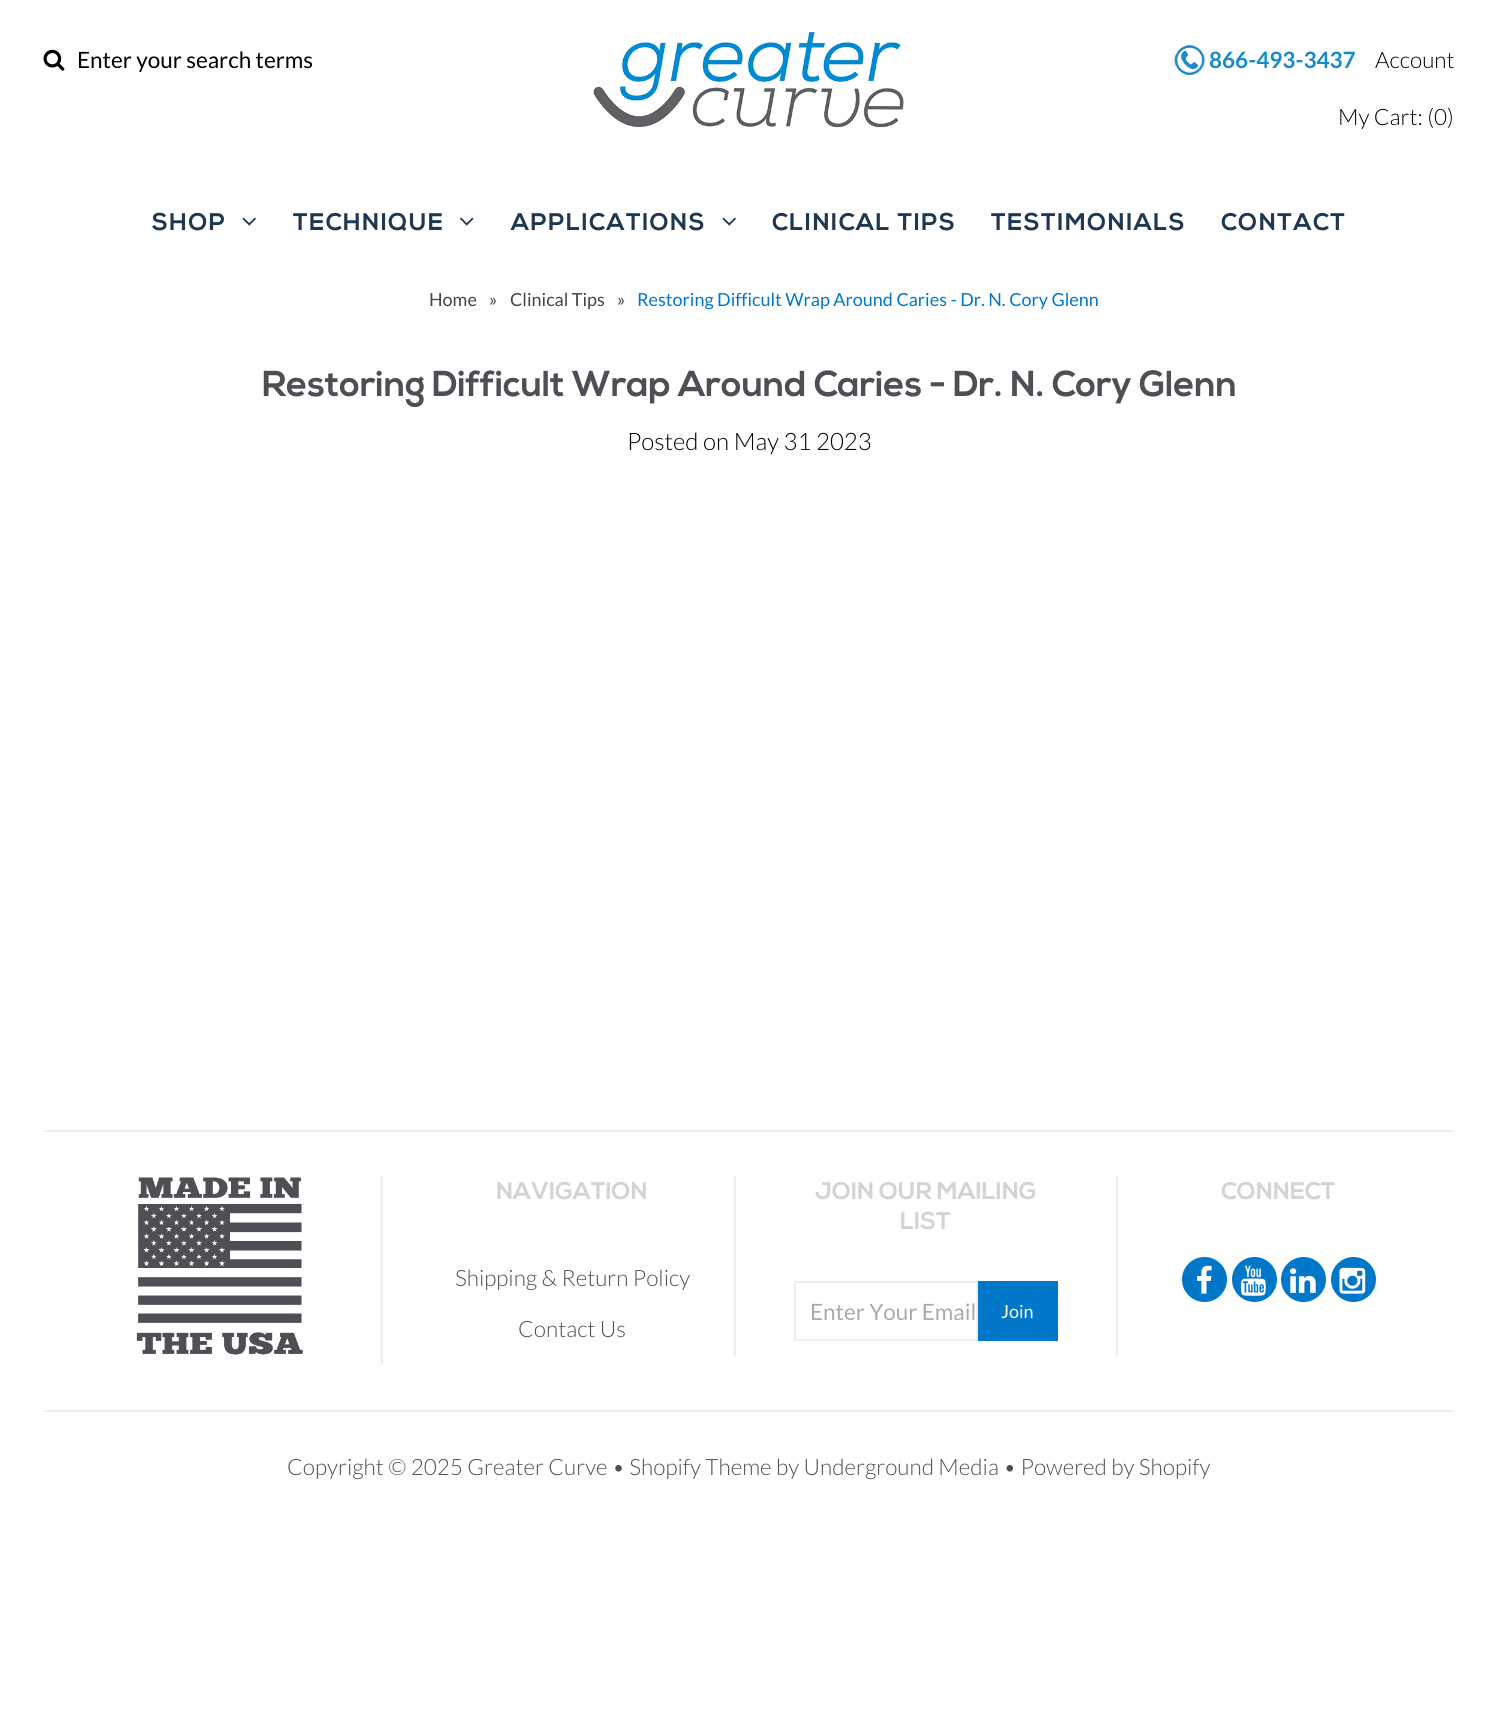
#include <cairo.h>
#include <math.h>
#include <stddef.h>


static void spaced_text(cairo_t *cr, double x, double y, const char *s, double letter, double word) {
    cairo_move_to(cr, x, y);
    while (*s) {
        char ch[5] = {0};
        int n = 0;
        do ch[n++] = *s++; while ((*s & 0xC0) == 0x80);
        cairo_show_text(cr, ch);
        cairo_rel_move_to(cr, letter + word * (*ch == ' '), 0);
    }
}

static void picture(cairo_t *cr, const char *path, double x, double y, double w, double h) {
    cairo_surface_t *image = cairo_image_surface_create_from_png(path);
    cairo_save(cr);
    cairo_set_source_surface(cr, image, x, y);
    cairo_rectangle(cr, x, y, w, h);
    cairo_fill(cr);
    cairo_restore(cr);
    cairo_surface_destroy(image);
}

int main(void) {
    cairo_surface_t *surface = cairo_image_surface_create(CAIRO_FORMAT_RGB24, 1498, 1734);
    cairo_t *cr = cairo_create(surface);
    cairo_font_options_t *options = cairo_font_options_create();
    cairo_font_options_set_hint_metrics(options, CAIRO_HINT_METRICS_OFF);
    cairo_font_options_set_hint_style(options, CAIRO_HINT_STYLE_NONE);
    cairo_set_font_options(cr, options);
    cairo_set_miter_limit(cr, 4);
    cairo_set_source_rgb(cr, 1, 1, 1);
    cairo_paint(cr);
    picture(cr, "img1.png", 43, 49, 22, 22);
    cairo_select_font_face(cr, "Lato", CAIRO_FONT_SLANT_NORMAL, CAIRO_FONT_WEIGHT_NORMAL);
    cairo_set_font_size(cr, 22.5);
    cairo_set_source_rgb(cr, 0, 0, 0);
    cairo_move_to(cr, 77, 68);
    cairo_show_text(cr, "Enter your search terms");
    picture(cr, "img2.png", 593, 32, 311, 96);
    picture(cr, "img3.png", 1174, 45, 31, 30);
    cairo_select_font_face(cr, "Lato", CAIRO_FONT_SLANT_NORMAL, CAIRO_FONT_WEIGHT_BOLD);
    cairo_set_source_rgb(cr, 0.086, 0.545, 0.8);
    cairo_move_to(cr, 1209, 68);
    cairo_show_text(cr, "866-493-3437");
    cairo_select_font_face(cr, "Lato Light", CAIRO_FONT_SLANT_NORMAL, CAIRO_FONT_WEIGHT_NORMAL);
    cairo_set_source_rgb(cr, 0, 0, 0);
    cairo_move_to(cr, 1375, 68);
    cairo_show_text(cr, "Account");
    cairo_move_to(cr, 1338, 125);
    cairo_show_text(cr, "My Cart: (0)");
    cairo_select_font_face(cr, "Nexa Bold", CAIRO_FONT_SLANT_NORMAL, CAIRO_FONT_WEIGHT_BOLD);
    cairo_set_font_size(cr, 24);
    cairo_set_source_rgb(cr, 0.122, 0.22, 0.318);
    spaced_text(cr, 152, 230, "SHOP", 1.5, 0);
    picture(cr, "img4.png", 242, 217, 14, 9);
    spaced_text(cr, 293, 230, "TECHNIQUE", 1.5, 0);
    picture(cr, "img5.png", 460, 217, 14, 9);
    spaced_text(cr, 511, 230, "APPLICATIONS", 1.5, 0);
    picture(cr, "img4.png", 722, 217, 14, 9);
    spaced_text(cr, 772, 230, "CLINICAL TIPS", 1.5, 0);
    spaced_text(cr, 991, 230, "TESTIMONIALS", 1.5, 0);
    spaced_text(cr, 1221, 230, "CONTACT", 1.5, 0);
    cairo_select_font_face(cr, "Lato", CAIRO_FONT_SLANT_NORMAL, CAIRO_FONT_WEIGHT_NORMAL);
    cairo_set_font_size(cr, 18);
    cairo_set_source_rgb(cr, 0.267, 0.267, 0.267);
    cairo_move_to(cr, 429, 306);
    cairo_show_text(cr, "Home");
    cairo_move_to(cr, 489, 306);
    cairo_show_text(cr, "»");
    cairo_move_to(cr, 510, 306);
    cairo_show_text(cr, "Clinical Tips");
    cairo_move_to(cr, 617, 306);
    cairo_show_text(cr, "»");
    cairo_set_source_rgb(cr, 0, 0.467, 0.784);
    cairo_move_to(cr, 637, 306);
    cairo_show_text(cr, "Restoring Difficult Wrap Around Caries - Dr. N. Cory Glenn");
    cairo_select_font_face(cr, "Nexa Bold", CAIRO_FONT_SLANT_NORMAL, CAIRO_FONT_WEIGHT_BOLD);
    cairo_set_font_size(cr, 36);
    cairo_set_source_rgb(cr, 0.302, 0.31, 0.329);
    cairo_move_to(cr, 262, 396);
    cairo_show_text(cr, "Restoring Difficult Wrap Around Caries - Dr. N. Cory Glenn");
    cairo_select_font_face(cr, "Lato Light", CAIRO_FONT_SLANT_NORMAL, CAIRO_FONT_WEIGHT_NORMAL);
    cairo_set_font_size(cr, 24);
    cairo_set_source_rgb(cr, 0, 0, 0);
    cairo_move_to(cr, 627, 450);
    cairo_show_text(cr, "Posted on May 31 2023");
    cairo_set_source_rgb(cr, 0.933, 0.933, 0.933);
    cairo_rectangle(cr, 44, 1130, 1410, 2);
    cairo_fill(cr);
    cairo_rectangle(cr, 44, 1410, 1410, 2);
    cairo_fill(cr);
    cairo_rectangle(cr, 381, 1176, 2, 189);
    cairo_fill(cr);
    picture(cr, "img6.png", 136, 1177, 167, 178);
    cairo_rectangle(cr, 734, 1176, 2, 180);
    cairo_fill(cr);
    cairo_select_font_face(cr, "Nexa Bold", CAIRO_FONT_SLANT_NORMAL, CAIRO_FONT_WEIGHT_BOLD);
    cairo_set_source_rgb(cr, 0.824, 0.827, 0.831);
    cairo_move_to(cr, 496, 1199);
    cairo_show_text(cr, "NAVIGATION");
    cairo_select_font_face(cr, "Lato Light", CAIRO_FONT_SLANT_NORMAL, CAIRO_FONT_WEIGHT_NORMAL);
    cairo_set_font_size(cr, 22.5);
    cairo_set_source_rgb(cr, 0.302, 0.31, 0.329);
    cairo_move_to(cr, 455, 1286);
    cairo_show_text(cr, "Shipping & Return Policy");
    cairo_move_to(cr, 518, 1337);
    cairo_show_text(cr, "Contact Us");
    cairo_select_font_face(cr, "Nexa Bold", CAIRO_FONT_SLANT_NORMAL, CAIRO_FONT_WEIGHT_BOLD);
    cairo_set_font_size(cr, 24);
    cairo_set_source_rgb(cr, 0.824, 0.827, 0.831);
    cairo_move_to(cr, 815, 1199);
    cairo_show_text(cr, "JOIN OUR MAILING");
    cairo_move_to(cr, 900, 1229);
    cairo_show_text(cr, "LIST");
    cairo_rectangle(cr, 795, 1282, 182, 58);
    cairo_set_source_rgb(cr, 0.933, 0.933, 0.933);
    cairo_stroke(cr);
    cairo_select_font_face(cr, "Lato", CAIRO_FONT_SLANT_NORMAL, CAIRO_FONT_WEIGHT_NORMAL);
    cairo_set_font_size(cr, 22.5);
    cairo_set_source_rgb(cr, 0.667, 0.667, 0.667);
    cairo_move_to(cr, 810, 1320);
    cairo_show_text(cr, "Enter Your Email");
    cairo_set_source_rgb(cr, 0, 0.467, 0.784);
    cairo_rectangle(cr, 978, 1281, 80, 60);
    cairo_fill(cr);
    cairo_set_font_size(cr, 18);
    cairo_set_source_rgb(cr, 1, 1, 1);
    cairo_move_to(cr, 1001, 1318);
    cairo_show_text(cr, "Join");
    cairo_set_source_rgb(cr, 0.933, 0.933, 0.933);
    cairo_rectangle(cr, 1116, 1176, 2, 180);
    cairo_fill(cr);
    cairo_select_font_face(cr, "Nexa Bold", CAIRO_FONT_SLANT_NORMAL, CAIRO_FONT_WEIGHT_BOLD);
    cairo_set_font_size(cr, 24);
    cairo_set_source_rgb(cr, 0.824, 0.827, 0.831);
    cairo_move_to(cr, 1221, 1199);
    cairo_show_text(cr, "CONNECT");
    cairo_set_source_rgb(cr, 0, 0.467, 0.784);
    cairo_new_path(cr);
    cairo_arc(cr, 1204.5, 1279.5, 22.5, 0, 2 * M_PI);
    cairo_fill(cr);
    picture(cr, "img7.png", 1197, 1265, 15, 29);
    cairo_arc(cr, 1254.5, 1279.5, 22.5, 0, 2 * M_PI);
    cairo_fill(cr);
    picture(cr, "img8.png", 1240, 1265, 26, 31);
    cairo_arc(cr, 1303.5, 1279.5, 22.5, 0, 2 * M_PI);
    cairo_fill(cr);
    picture(cr, "img9.png", 1290, 1268, 26, 25);
    cairo_arc(cr, 1353.5, 1279.5, 22.5, 0, 2 * M_PI);
    cairo_fill(cr);
    picture(cr, "img10.png", 1339, 1267, 27, 27);
    cairo_select_font_face(cr, "Lato Light", CAIRO_FONT_SLANT_NORMAL, CAIRO_FONT_WEIGHT_NORMAL);
    cairo_set_font_size(cr, 22.5);
    cairo_set_source_rgb(cr, 0.302, 0.31, 0.329);
    cairo_move_to(cr, 287, 1475);
    cairo_show_text(cr, "Copyright © 2025 Greater Curve • Shopify Theme by Underground Media • Powered by Shopify");
    cairo_surface_write_to_png(surface, "page.png");
    cairo_font_options_destroy(options);
    cairo_destroy(cr);
    cairo_surface_destroy(surface);
    return 0;
}
